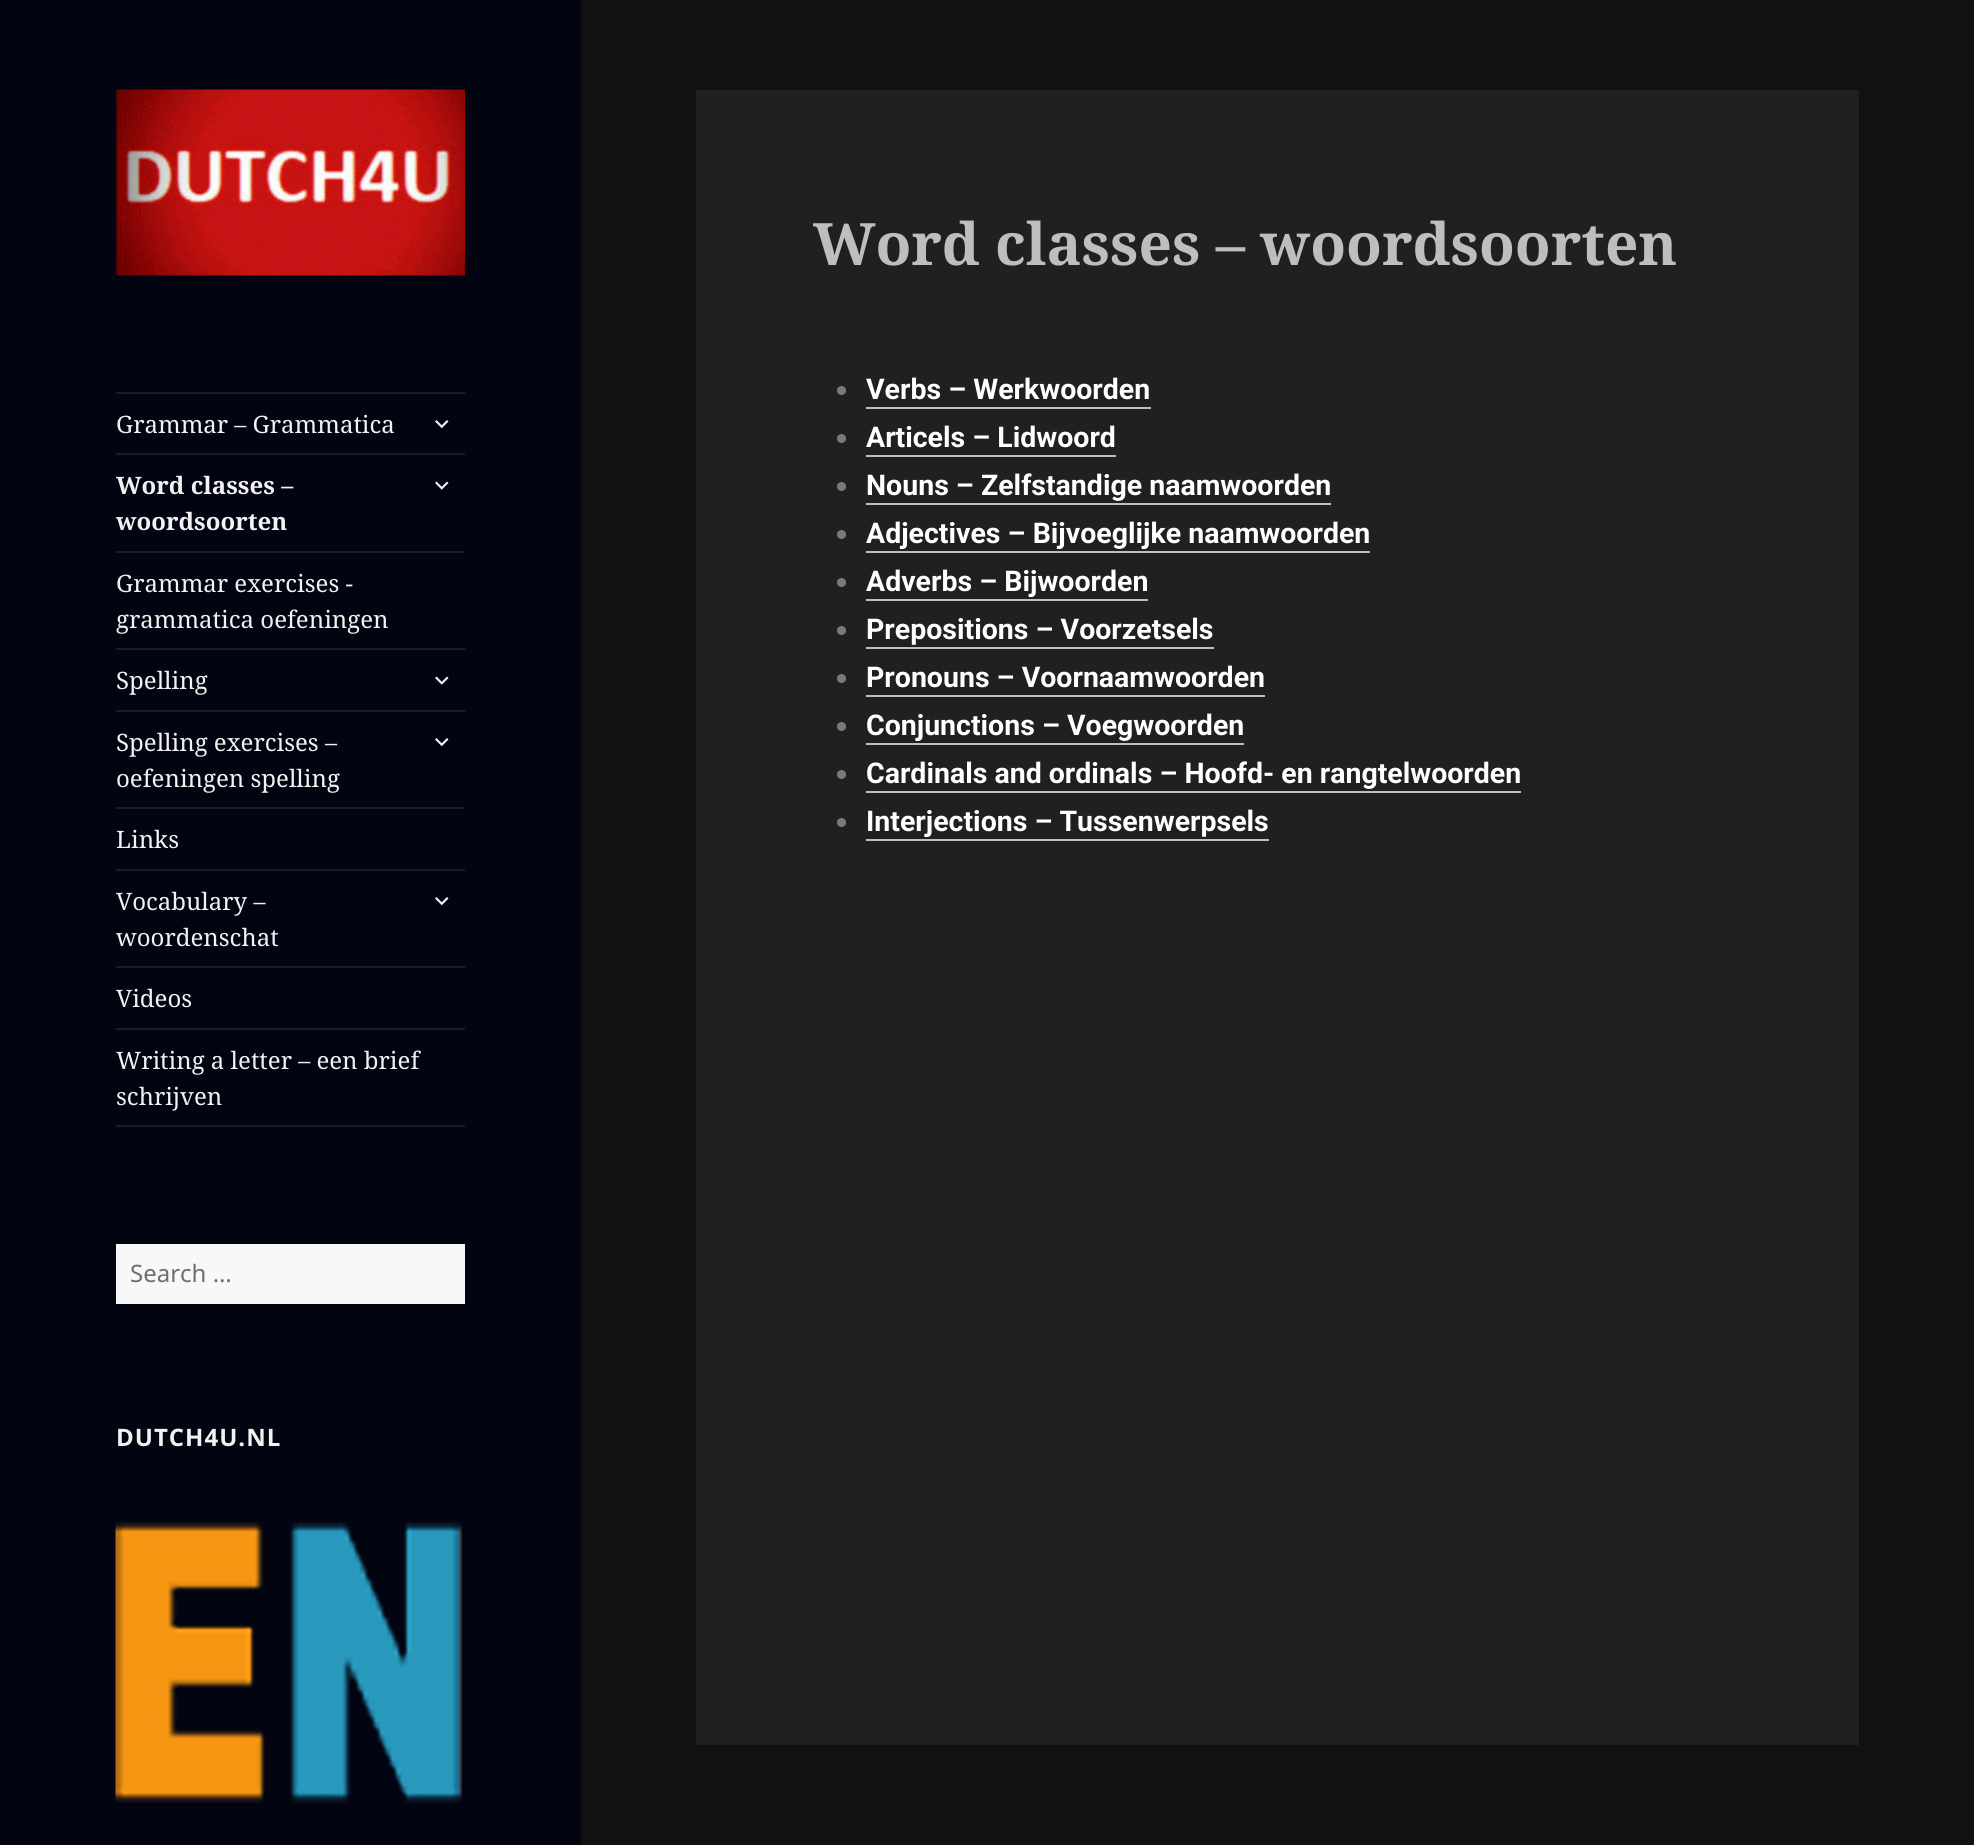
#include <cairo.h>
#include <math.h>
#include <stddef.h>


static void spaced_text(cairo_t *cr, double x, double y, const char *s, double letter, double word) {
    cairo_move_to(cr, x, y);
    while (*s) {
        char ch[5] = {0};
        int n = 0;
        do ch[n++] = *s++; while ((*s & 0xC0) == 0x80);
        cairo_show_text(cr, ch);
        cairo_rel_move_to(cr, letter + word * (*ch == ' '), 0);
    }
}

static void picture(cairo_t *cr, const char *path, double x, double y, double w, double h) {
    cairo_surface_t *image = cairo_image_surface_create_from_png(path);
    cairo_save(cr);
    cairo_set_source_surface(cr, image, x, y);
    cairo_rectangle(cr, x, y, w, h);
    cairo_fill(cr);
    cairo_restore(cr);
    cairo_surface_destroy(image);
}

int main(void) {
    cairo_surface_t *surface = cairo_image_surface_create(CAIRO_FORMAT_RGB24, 1974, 1845);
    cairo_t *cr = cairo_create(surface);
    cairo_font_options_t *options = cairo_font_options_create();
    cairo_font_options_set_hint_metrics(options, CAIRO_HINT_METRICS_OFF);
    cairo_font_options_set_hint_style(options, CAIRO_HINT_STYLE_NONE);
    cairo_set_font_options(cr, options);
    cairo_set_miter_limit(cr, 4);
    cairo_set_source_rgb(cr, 0.067, 0.067, 0.067);
    cairo_paint(cr);
    cairo_set_source_rgb(cr, 0.008, 0.016, 0.067);
    cairo_rectangle(cr, 0, 0, 581, 1845);
    cairo_fill(cr);
    picture(cr, "img1.png", 115, 89, 350, 187);
    cairo_set_source_rgb(cr, 0.102, 0.11, 0.157);
    cairo_rectangle(cr, 116, 392, 349, 2);
    cairo_fill(cr);
    cairo_rectangle(cr, 116, 1125, 349, 2);
    cairo_fill(cr);
    cairo_select_font_face(cr, "Noto Serif", CAIRO_FONT_SLANT_NORMAL, CAIRO_FONT_WEIGHT_NORMAL);
    cairo_set_font_size(cr, 24);
    cairo_set_source_rgb(cr, 0.949, 0.949, 0.949);
    cairo_move_to(cr, 116, 433);
    cairo_show_text(cr, "Grammar – Grammatica");
    picture(cr, "img2.png", 435, 420, 14, 9);
    cairo_set_source_rgb(cr, 0.102, 0.11, 0.157);
    cairo_rectangle(cr, 116, 453, 349, 2);
    cairo_fill(cr);
    cairo_select_font_face(cr, "Noto Serif", CAIRO_FONT_SLANT_NORMAL, CAIRO_FONT_WEIGHT_BOLD);
    cairo_set_source_rgb(cr, 0.949, 0.949, 0.949);
    cairo_move_to(cr, 116, 494);
    cairo_show_text(cr, "Word classes –");
    cairo_move_to(cr, 116, 530);
    cairo_show_text(cr, "woordsoorten");
    picture(cr, "img3.png", 435, 481, 14, 9);
    cairo_set_source_rgb(cr, 0.102, 0.11, 0.157);
    cairo_rectangle(cr, 116, 551, 349, 2);
    cairo_fill(cr);
    cairo_select_font_face(cr, "Noto Serif", CAIRO_FONT_SLANT_NORMAL, CAIRO_FONT_WEIGHT_NORMAL);
    cairo_set_source_rgb(cr, 0.949, 0.949, 0.949);
    cairo_move_to(cr, 116, 592);
    cairo_show_text(cr, "Grammar exercises -");
    cairo_move_to(cr, 116, 628);
    cairo_show_text(cr, "grammatica oefeningen");
    cairo_set_source_rgb(cr, 0.102, 0.11, 0.157);
    cairo_rectangle(cr, 116, 648, 349, 2);
    cairo_fill(cr);
    cairo_set_source_rgb(cr, 0.949, 0.949, 0.949);
    cairo_move_to(cr, 116, 689);
    cairo_show_text(cr, "Spelling");
    picture(cr, "img3.png", 435, 676, 14, 9);
    cairo_set_source_rgb(cr, 0.102, 0.11, 0.157);
    cairo_rectangle(cr, 116, 710, 349, 2);
    cairo_fill(cr);
    cairo_set_source_rgb(cr, 0.949, 0.949, 0.949);
    cairo_move_to(cr, 116, 751);
    cairo_show_text(cr, "Spelling exercises –");
    cairo_move_to(cr, 116, 787);
    cairo_show_text(cr, "oefeningen spelling");
    picture(cr, "img2.png", 435, 738, 14, 9);
    cairo_set_source_rgb(cr, 0.102, 0.11, 0.157);
    cairo_rectangle(cr, 116, 807, 349, 2);
    cairo_fill(cr);
    cairo_set_source_rgb(cr, 0.949, 0.949, 0.949);
    cairo_move_to(cr, 116, 848);
    cairo_show_text(cr, "Links");
    cairo_set_source_rgb(cr, 0.102, 0.11, 0.157);
    cairo_rectangle(cr, 116, 869, 349, 2);
    cairo_fill(cr);
    cairo_set_source_rgb(cr, 0.949, 0.949, 0.949);
    cairo_move_to(cr, 116, 910);
    cairo_show_text(cr, "Vocabulary –");
    cairo_move_to(cr, 116, 946);
    cairo_show_text(cr, "woordenschat");
    picture(cr, "img2.png", 435, 897, 14, 9);
    cairo_set_source_rgb(cr, 0.102, 0.11, 0.157);
    cairo_rectangle(cr, 116, 966, 349, 2);
    cairo_fill(cr);
    cairo_set_source_rgb(cr, 0.949, 0.949, 0.949);
    cairo_move_to(cr, 116, 1007);
    cairo_show_text(cr, "Videos");
    cairo_set_source_rgb(cr, 0.102, 0.11, 0.157);
    cairo_rectangle(cr, 116, 1028, 349, 2);
    cairo_fill(cr);
    cairo_set_source_rgb(cr, 0.949, 0.949, 0.949);
    cairo_move_to(cr, 116, 1069);
    cairo_show_text(cr, "Writing a letter – een brief");
    cairo_move_to(cr, 116, 1105);
    cairo_show_text(cr, "schrijven");
    cairo_set_source_rgb(cr, 0.969, 0.969, 0.969);
    cairo_rectangle(cr, 116, 1244, 349, 60);
    cairo_fill(cr);
    cairo_select_font_face(cr, "Noto Sans", CAIRO_FONT_SLANT_NORMAL, CAIRO_FONT_WEIGHT_NORMAL);
    cairo_set_source_rgb(cr, 0.431, 0.431, 0.431);
    cairo_move_to(cr, 130, 1282);
    cairo_show_text(cr, "Search …");
    cairo_select_font_face(cr, "Noto Sans", CAIRO_FONT_SLANT_NORMAL, CAIRO_FONT_WEIGHT_BOLD);
    cairo_set_source_rgb(cr, 0.949, 0.949, 0.949);
    spaced_text(cr, 116, 1446, "DUTCH4U.NL", 1, 0);
    picture(cr, "img4.png", 115, 1522, 348, 281);
    cairo_set_source_rgb(cr, 0.125, 0.125, 0.125);
    cairo_rectangle(cr, 696, 90, 1163, 1655);
    cairo_fill(cr);
    cairo_select_font_face(cr, "Noto Serif", CAIRO_FONT_SLANT_NORMAL, CAIRO_FONT_WEIGHT_BOLD);
    cairo_set_font_size(cr, 58.5);
    cairo_set_source_rgb(cr, 0.745, 0.745, 0.745);
    cairo_move_to(cr, 813, 265);
    cairo_show_text(cr, "Word classes – woordsoorten");
    cairo_set_source_rgb(cr, 0.478, 0.478, 0.478);
    cairo_new_path(cr);
    cairo_arc(cr, 841.5, 390.5, 4.5, 0, 2 * M_PI);
    cairo_fill(cr);
    cairo_select_font_face(cr, "Roboto", CAIRO_FONT_SLANT_NORMAL, CAIRO_FONT_WEIGHT_BOLD);
    cairo_set_font_size(cr, 28.5);
    cairo_set_source_rgb(cr, 1, 1, 1);
    cairo_move_to(cr, 866, 399);
    cairo_show_text(cr, "Verbs – Werkwoorden");
    cairo_set_source_rgb(cr, 0.745, 0.745, 0.745);
    cairo_rectangle(cr, 866, 407, 285, 2);
    cairo_fill(cr);
    cairo_set_source_rgb(cr, 0.478, 0.478, 0.478);
    cairo_arc(cr, 841.5, 438.5, 4.5, 0, 2 * M_PI);
    cairo_fill(cr);
    cairo_set_source_rgb(cr, 1, 1, 1);
    cairo_move_to(cr, 866, 447);
    cairo_show_text(cr, "Articels – Lidwoord");
    cairo_set_source_rgb(cr, 0.745, 0.745, 0.745);
    cairo_rectangle(cr, 866, 455, 250, 2);
    cairo_fill(cr);
    cairo_set_source_rgb(cr, 0.478, 0.478, 0.478);
    cairo_arc(cr, 841.5, 486.5, 4.5, 0, 2 * M_PI);
    cairo_fill(cr);
    cairo_set_source_rgb(cr, 1, 1, 1);
    cairo_move_to(cr, 866, 495);
    cairo_show_text(cr, "Nouns – Zelfstandige naamwoorden");
    cairo_set_source_rgb(cr, 0.745, 0.745, 0.745);
    cairo_rectangle(cr, 866, 503, 465, 2);
    cairo_fill(cr);
    cairo_set_source_rgb(cr, 0.478, 0.478, 0.478);
    cairo_arc(cr, 841.5, 534.5, 4.5, 0, 2 * M_PI);
    cairo_fill(cr);
    cairo_set_source_rgb(cr, 1, 1, 1);
    cairo_move_to(cr, 866, 543);
    cairo_show_text(cr, "Adjectives – Bijvoeglijke naamwoorden");
    cairo_set_source_rgb(cr, 0.745, 0.745, 0.745);
    cairo_rectangle(cr, 866, 551, 504, 2);
    cairo_fill(cr);
    cairo_set_source_rgb(cr, 0.478, 0.478, 0.478);
    cairo_arc(cr, 841.5, 582.5, 4.5, 0, 2 * M_PI);
    cairo_fill(cr);
    cairo_set_source_rgb(cr, 1, 1, 1);
    cairo_move_to(cr, 866, 591);
    cairo_show_text(cr, "Adverbs – Bijwoorden");
    cairo_set_source_rgb(cr, 0.745, 0.745, 0.745);
    cairo_rectangle(cr, 866, 599, 282, 2);
    cairo_fill(cr);
    cairo_set_source_rgb(cr, 0.478, 0.478, 0.478);
    cairo_arc(cr, 841.5, 630.5, 4.5, 0, 2 * M_PI);
    cairo_fill(cr);
    cairo_set_source_rgb(cr, 1, 1, 1);
    cairo_move_to(cr, 866, 639);
    cairo_show_text(cr, "Prepositions – Voorzetsels");
    cairo_set_source_rgb(cr, 0.745, 0.745, 0.745);
    cairo_rectangle(cr, 866, 647, 348, 2);
    cairo_fill(cr);
    cairo_set_source_rgb(cr, 0.478, 0.478, 0.478);
    cairo_arc(cr, 841.5, 678.5, 4.5, 0, 2 * M_PI);
    cairo_fill(cr);
    cairo_set_source_rgb(cr, 1, 1, 1);
    cairo_move_to(cr, 866, 687);
    cairo_show_text(cr, "Pronouns – Voornaamwoorden");
    cairo_set_source_rgb(cr, 0.745, 0.745, 0.745);
    cairo_rectangle(cr, 866, 695, 399, 2);
    cairo_fill(cr);
    cairo_set_source_rgb(cr, 0.478, 0.478, 0.478);
    cairo_arc(cr, 841.5, 726.5, 4.5, 0, 2 * M_PI);
    cairo_fill(cr);
    cairo_set_source_rgb(cr, 1, 1, 1);
    cairo_move_to(cr, 866, 735);
    cairo_show_text(cr, "Conjunctions – Voegwoorden");
    cairo_set_source_rgb(cr, 0.745, 0.745, 0.745);
    cairo_rectangle(cr, 866, 743, 378, 2);
    cairo_fill(cr);
    cairo_set_source_rgb(cr, 0.478, 0.478, 0.478);
    cairo_arc(cr, 841.5, 774.5, 4.5, 0, 2 * M_PI);
    cairo_fill(cr);
    cairo_set_source_rgb(cr, 1, 1, 1);
    cairo_move_to(cr, 866, 783);
    cairo_show_text(cr, "Cardinals and ordinals – Hoofd- en rangtelwoorden");
    cairo_set_source_rgb(cr, 0.745, 0.745, 0.745);
    cairo_rectangle(cr, 866, 791, 655, 2);
    cairo_fill(cr);
    cairo_set_source_rgb(cr, 0.478, 0.478, 0.478);
    cairo_arc(cr, 841.5, 822.5, 4.5, 0, 2 * M_PI);
    cairo_fill(cr);
    cairo_set_source_rgb(cr, 1, 1, 1);
    cairo_move_to(cr, 866, 831);
    cairo_show_text(cr, "Interjections – Tussenwerpsels");
    cairo_set_source_rgb(cr, 0.745, 0.745, 0.745);
    cairo_rectangle(cr, 866, 839, 403, 2);
    cairo_fill(cr);
    cairo_surface_write_to_png(surface, "page.png");
    cairo_font_options_destroy(options);
    cairo_destroy(cr);
    cairo_surface_destroy(surface);
    return 0;
}
